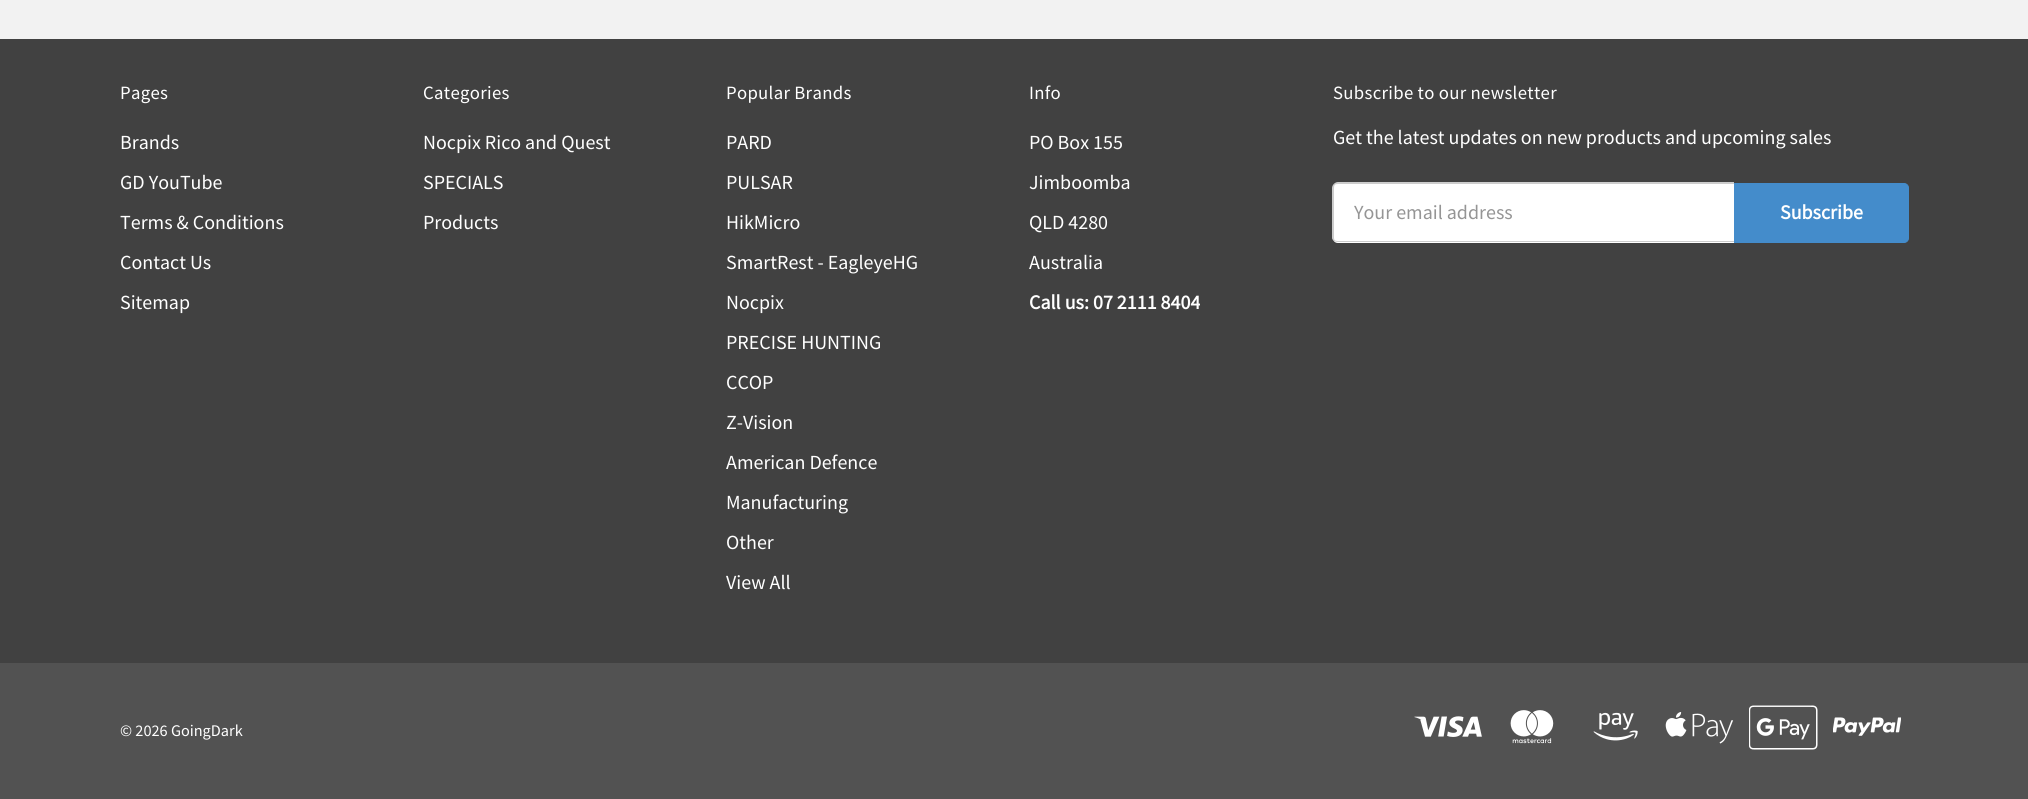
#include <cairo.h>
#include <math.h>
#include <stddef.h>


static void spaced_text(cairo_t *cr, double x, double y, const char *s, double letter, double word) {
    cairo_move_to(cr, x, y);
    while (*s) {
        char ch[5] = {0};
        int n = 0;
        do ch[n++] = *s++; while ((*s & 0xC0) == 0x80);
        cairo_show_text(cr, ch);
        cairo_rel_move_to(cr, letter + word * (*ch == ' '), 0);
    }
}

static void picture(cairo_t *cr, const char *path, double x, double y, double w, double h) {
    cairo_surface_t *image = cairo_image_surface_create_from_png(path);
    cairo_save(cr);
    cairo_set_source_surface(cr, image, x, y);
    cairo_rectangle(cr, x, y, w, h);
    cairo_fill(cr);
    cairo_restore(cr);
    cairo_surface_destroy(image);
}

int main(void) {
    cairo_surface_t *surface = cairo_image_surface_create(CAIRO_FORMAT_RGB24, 2028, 799);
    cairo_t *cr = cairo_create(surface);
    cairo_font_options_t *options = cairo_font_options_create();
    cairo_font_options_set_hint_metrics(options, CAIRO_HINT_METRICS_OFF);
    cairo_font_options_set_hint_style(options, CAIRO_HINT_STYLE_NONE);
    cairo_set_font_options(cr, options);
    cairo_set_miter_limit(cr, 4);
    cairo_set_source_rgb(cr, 0.949, 0.949, 0.949);
    cairo_paint(cr);
    cairo_set_source_rgb(cr, 0.255, 0.255, 0.255);
    cairo_rectangle(cr, 0, 39, 2028, 624);
    cairo_fill(cr);
    cairo_select_font_face(cr, "Source Sans Pro", CAIRO_FONT_SLANT_NORMAL, CAIRO_FONT_WEIGHT_NORMAL);
    cairo_set_font_size(cr, 18.75);
    cairo_set_source_rgb(cr, 1, 1, 1);
    spaced_text(cr, 120, 99, "Pages", 0.3, 0);
    cairo_set_font_size(cr, 20);
    cairo_move_to(cr, 120, 149);
    cairo_show_text(cr, "Brands");
    cairo_move_to(cr, 120, 189);
    cairo_show_text(cr, "GD YouTube");
    cairo_move_to(cr, 120, 229);
    cairo_show_text(cr, "Terms & Conditions");
    cairo_move_to(cr, 120, 269);
    cairo_show_text(cr, "Contact Us");
    cairo_move_to(cr, 120, 309);
    cairo_show_text(cr, "Sitemap");
    cairo_set_font_size(cr, 18.75);
    spaced_text(cr, 423, 99, "Categories", 0.3, 0);
    cairo_set_font_size(cr, 20);
    cairo_move_to(cr, 423, 149);
    cairo_show_text(cr, "Nocpix Rico and Quest");
    cairo_move_to(cr, 423, 189);
    cairo_show_text(cr, "SPECIALS");
    cairo_move_to(cr, 423, 229);
    cairo_show_text(cr, "Products");
    cairo_set_font_size(cr, 18.75);
    spaced_text(cr, 726, 99, "Popular Brands", 0.3, 0);
    cairo_set_font_size(cr, 20);
    cairo_move_to(cr, 726, 149);
    cairo_show_text(cr, "PARD");
    cairo_move_to(cr, 726, 189);
    cairo_show_text(cr, "PULSAR");
    cairo_move_to(cr, 726, 229);
    cairo_show_text(cr, "HikMicro");
    cairo_move_to(cr, 726, 269);
    cairo_show_text(cr, "SmartRest - EagleyeHG");
    cairo_move_to(cr, 726, 309);
    cairo_show_text(cr, "Nocpix");
    cairo_move_to(cr, 726, 349);
    cairo_show_text(cr, "PRECISE HUNTING");
    cairo_move_to(cr, 726, 389);
    cairo_show_text(cr, "CCOP");
    cairo_move_to(cr, 726, 429);
    cairo_show_text(cr, "Z-Vision");
    cairo_move_to(cr, 726, 469);
    cairo_show_text(cr, "American Defence");
    cairo_move_to(cr, 726, 509);
    cairo_show_text(cr, "Manufacturing");
    cairo_move_to(cr, 726, 549);
    cairo_show_text(cr, "Other");
    cairo_move_to(cr, 726, 589);
    cairo_show_text(cr, "View All");
    cairo_set_font_size(cr, 18.75);
    spaced_text(cr, 1029, 99, "Info", 0.3, 0);
    cairo_set_font_size(cr, 20);
    cairo_move_to(cr, 1029, 149);
    cairo_show_text(cr, "PO Box 155");
    cairo_move_to(cr, 1029, 189);
    cairo_show_text(cr, "Jimboomba");
    cairo_move_to(cr, 1029, 229);
    cairo_show_text(cr, "QLD 4280");
    cairo_move_to(cr, 1029, 269);
    cairo_show_text(cr, "Australia");
    cairo_select_font_face(cr, "Source Sans Pro", CAIRO_FONT_SLANT_NORMAL, CAIRO_FONT_WEIGHT_BOLD);
    cairo_move_to(cr, 1029, 309);
    cairo_show_text(cr, "Call us: 07 2111 8404");
    cairo_select_font_face(cr, "Source Sans Pro", CAIRO_FONT_SLANT_NORMAL, CAIRO_FONT_WEIGHT_NORMAL);
    cairo_set_font_size(cr, 18.75);
    spaced_text(cr, 1333, 99, "Subscribe to our newsletter", 0.3, 0);
    cairo_set_font_size(cr, 20);
    cairo_move_to(cr, 1333, 144);
    cairo_show_text(cr, "Get the latest updates on new products and upcoming sales");
    cairo_new_path(cr);
    cairo_move_to(cr, 1338, 183);
    cairo_line_to(cr, 1734, 183);
    cairo_line_to(cr, 1734, 243);
    cairo_line_to(cr, 1338, 243);
    cairo_curve_to(cr, 1335, 243, 1333, 241, 1333, 238);
    cairo_line_to(cr, 1333, 188);
    cairo_curve_to(cr, 1333, 185, 1335, 183, 1338, 183);
    cairo_close_path(cr);
    cairo_fill(cr);
    cairo_set_source_rgb(cr, 0.8, 0.8, 0.8);
    cairo_set_fill_rule(cr, CAIRO_FILL_RULE_EVEN_ODD);
    cairo_new_path(cr);
    cairo_move_to(cr, 1338, 182);
    cairo_line_to(cr, 1734, 182);
    cairo_line_to(cr, 1734, 242);
    cairo_line_to(cr, 1338, 242);
    cairo_curve_to(cr, 1335, 242, 1332, 240, 1332, 238);
    cairo_line_to(cr, 1332, 188);
    cairo_curve_to(cr, 1332, 185, 1335, 182, 1338, 182);
    cairo_close_path(cr);
    cairo_move_to(cr, 1338, 184);
    cairo_line_to(cr, 1734, 184);
    cairo_line_to(cr, 1734, 241);
    cairo_line_to(cr, 1338, 241);
    cairo_curve_to(cr, 1335, 241, 1334, 240, 1334, 238);
    cairo_line_to(cr, 1334, 188);
    cairo_curve_to(cr, 1334, 185, 1335, 184, 1338, 184);
    cairo_close_path(cr);
    cairo_fill(cr);
    cairo_set_source_rgb(cr, 0.584, 0.584, 0.584);
    cairo_move_to(cr, 1354, 219);
    cairo_show_text(cr, "Your email address");
    cairo_set_source_rgb(cr, 0.267, 0.549, 0.796);
    cairo_new_path(cr);
    cairo_move_to(cr, 1734.5, 183.5);
    cairo_line_to(cr, 1904, 183.5);
    cairo_curve_to(cr, 1906.5, 183.5, 1908.5, 185.5, 1908.5, 188);
    cairo_line_to(cr, 1908.5, 238);
    cairo_curve_to(cr, 1908.5, 240.5, 1906.5, 242.5, 1904, 242.5);
    cairo_line_to(cr, 1734.5, 242.5);
    cairo_close_path(cr);
    cairo_fill_preserve(cr);
    cairo_set_line_width(cr, 1);
    cairo_stroke(cr);
    cairo_select_font_face(cr, "Source Sans Pro", CAIRO_FONT_SLANT_NORMAL, CAIRO_FONT_WEIGHT_BOLD);
    cairo_set_source_rgb(cr, 1, 1, 1);
    cairo_move_to(cr, 1780, 219);
    cairo_show_text(cr, "Subscribe");
    cairo_set_source_rgb(cr, 0.322, 0.322, 0.322);
    cairo_rectangle(cr, 0, 663, 2028, 136);
    cairo_fill(cr);
    cairo_select_font_face(cr, "Source Sans Pro", CAIRO_FONT_SLANT_NORMAL, CAIRO_FONT_WEIGHT_NORMAL);
    cairo_set_font_size(cr, 16.25);
    cairo_set_source_rgb(cr, 1, 1, 1);
    cairo_move_to(cr, 120, 736);
    cairo_show_text(cr, "© 2026 GoingDark");
    picture(cr, "img1.png", 1414, 716, 68, 21);
    picture(cr, "img2.png", 1510, 710, 44, 34);
    picture(cr, "img3.png", 1593, 712, 45, 29);
    picture(cr, "img4.png", 1665, 712, 69, 32);
    picture(cr, "img5.png", 1749, 705, 69, 45);
    picture(cr, "img6.png", 1833, 717, 68, 19);
    cairo_surface_write_to_png(surface, "page.png");
    cairo_font_options_destroy(options);
    cairo_destroy(cr);
    cairo_surface_destroy(surface);
    return 0;
}
